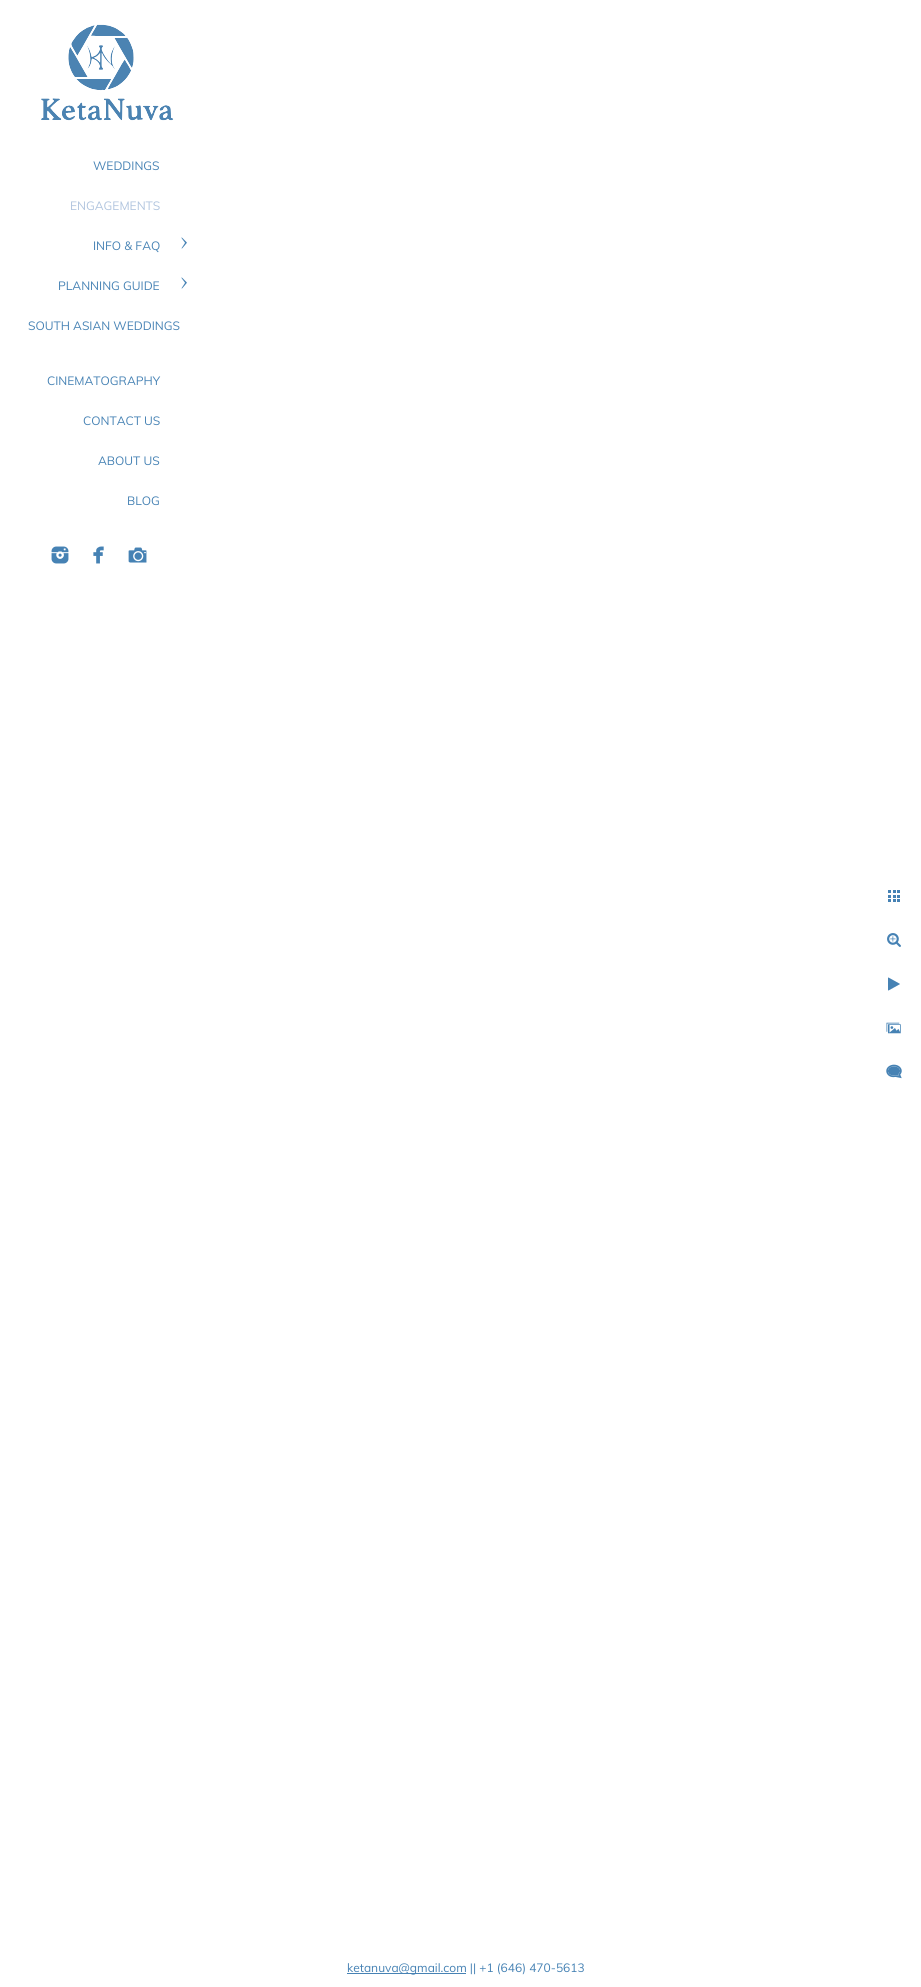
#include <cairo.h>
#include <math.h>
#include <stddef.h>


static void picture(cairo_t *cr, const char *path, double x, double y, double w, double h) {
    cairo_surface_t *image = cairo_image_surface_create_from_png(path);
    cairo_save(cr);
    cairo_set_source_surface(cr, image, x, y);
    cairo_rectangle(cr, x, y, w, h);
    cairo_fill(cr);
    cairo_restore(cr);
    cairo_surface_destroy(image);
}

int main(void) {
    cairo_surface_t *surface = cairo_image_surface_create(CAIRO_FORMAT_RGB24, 921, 1987);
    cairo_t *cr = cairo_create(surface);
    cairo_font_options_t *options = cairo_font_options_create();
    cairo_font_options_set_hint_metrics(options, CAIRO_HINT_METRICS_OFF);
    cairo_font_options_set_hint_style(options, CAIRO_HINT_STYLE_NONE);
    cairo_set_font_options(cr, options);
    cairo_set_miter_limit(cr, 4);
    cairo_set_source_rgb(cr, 1, 1, 1);
    cairo_paint(cr);
    picture(cr, "img1.png", 41, 24, 133, 97);
    cairo_select_font_face(cr, "Muli", CAIRO_FONT_SLANT_NORMAL, CAIRO_FONT_WEIGHT_NORMAL);
    cairo_set_font_size(cr, 12);
    cairo_set_source_rgb(cr, 0.275, 0.51, 0.706);
    cairo_move_to(cr, 93, 170);
    cairo_show_text(cr, "WEDDINGS");
    cairo_set_source_rgb(cr, 0.69, 0.769, 0.871);
    cairo_move_to(cr, 70, 210);
    cairo_show_text(cr, "ENGAGEMENTS");
    cairo_set_source_rgb(cr, 0.275, 0.51, 0.706);
    cairo_move_to(cr, 93, 250);
    cairo_show_text(cr, "INFO & FAQ");
    picture(cr, "img2.png", 181, 237, 6, 12);
    cairo_move_to(cr, 58, 290);
    cairo_show_text(cr, "PLANNING GUIDE");
    picture(cr, "img2.png", 181, 277, 6, 12);
    cairo_move_to(cr, 28, 330);
    cairo_show_text(cr, "SOUTH ASIAN WEDDINGS");
    cairo_move_to(cr, 47, 385);
    cairo_show_text(cr, "CINEMATOGRAPHY");
    cairo_move_to(cr, 83, 425);
    cairo_show_text(cr, "CONTACT US");
    cairo_move_to(cr, 98, 465);
    cairo_show_text(cr, "ABOUT US");
    cairo_move_to(cr, 127, 505);
    cairo_show_text(cr, "BLOG");
    picture(cr, "img3.png", 51, 546, 18, 18);
    picture(cr, "img4.png", 93, 546, 11, 18);
    picture(cr, "img5.png", 128, 547, 19, 16);
    picture(cr, "img6.png", 888, 890, 12, 12);
    picture(cr, "img7.png", 887, 933, 14, 14);
    picture(cr, "img8.png", 888, 977, 12, 14);
    picture(cr, "img9.png", 886, 1022, 15, 12);
    picture(cr, "img10.png", 886, 1064, 16, 15);
    cairo_rectangle(cr, 347, 1973, 119, 1);
    cairo_fill(cr);
    cairo_move_to(cr, 347, 1972);
    cairo_show_text(cr, "ketanuva@gmail.com || +1 (646) 470-5613");
    cairo_surface_write_to_png(surface, "page.png");
    cairo_font_options_destroy(options);
    cairo_destroy(cr);
    cairo_surface_destroy(surface);
    return 0;
}
